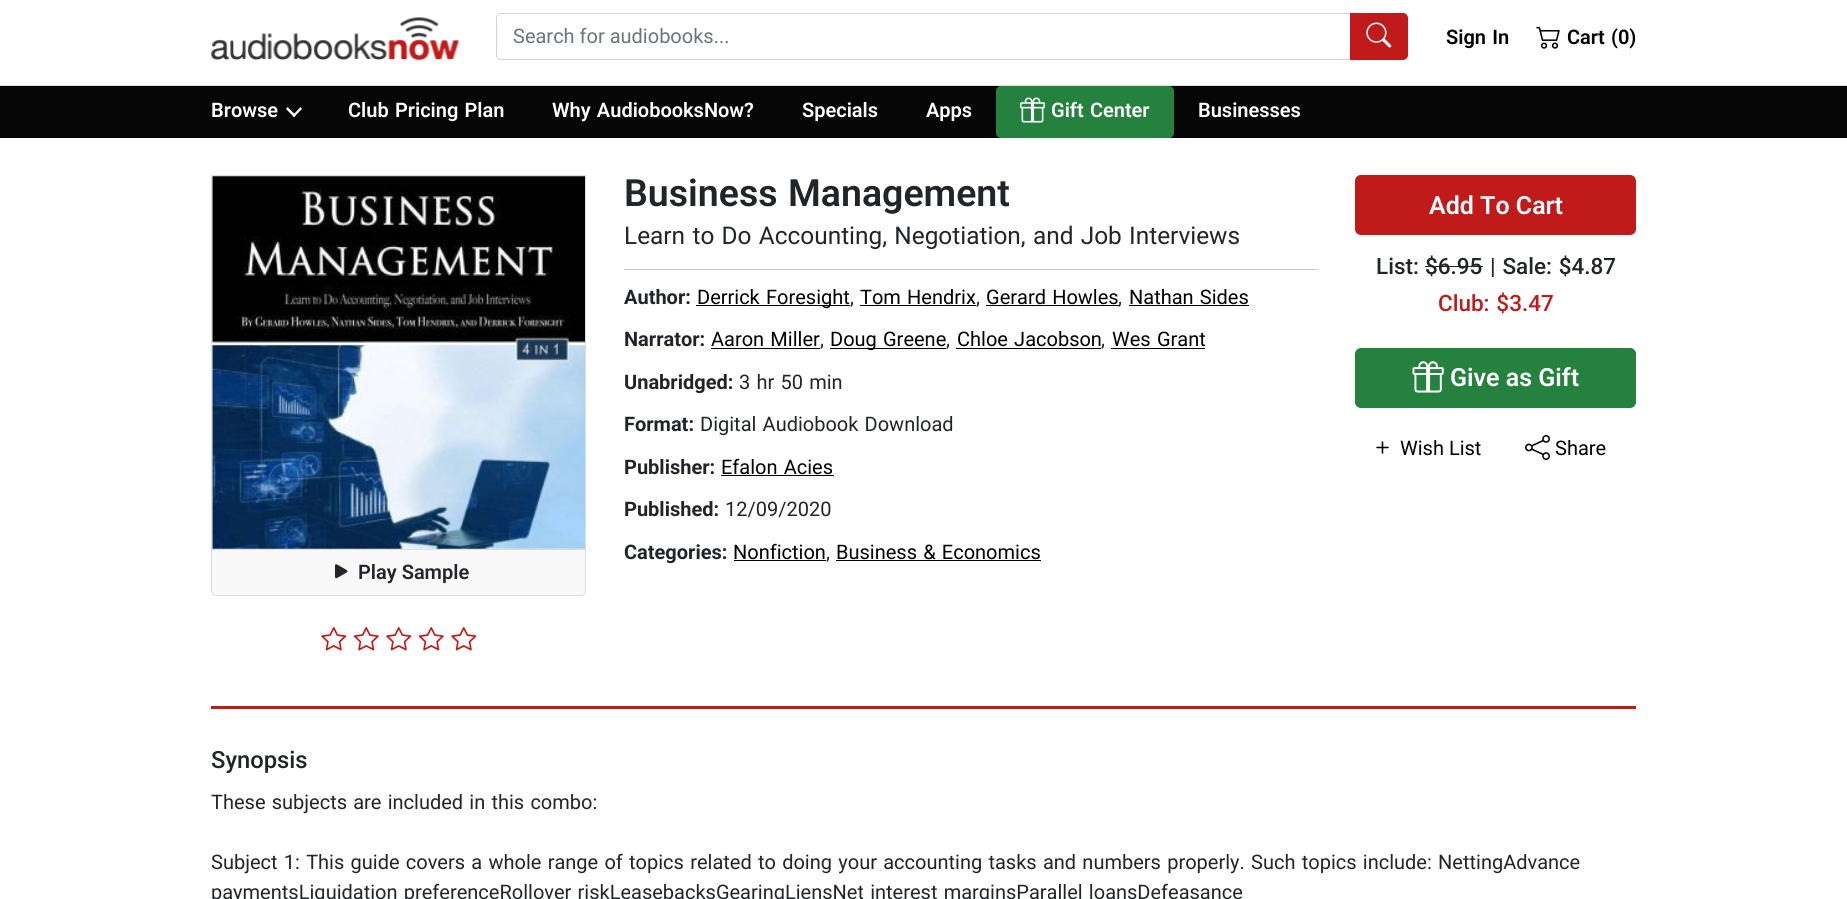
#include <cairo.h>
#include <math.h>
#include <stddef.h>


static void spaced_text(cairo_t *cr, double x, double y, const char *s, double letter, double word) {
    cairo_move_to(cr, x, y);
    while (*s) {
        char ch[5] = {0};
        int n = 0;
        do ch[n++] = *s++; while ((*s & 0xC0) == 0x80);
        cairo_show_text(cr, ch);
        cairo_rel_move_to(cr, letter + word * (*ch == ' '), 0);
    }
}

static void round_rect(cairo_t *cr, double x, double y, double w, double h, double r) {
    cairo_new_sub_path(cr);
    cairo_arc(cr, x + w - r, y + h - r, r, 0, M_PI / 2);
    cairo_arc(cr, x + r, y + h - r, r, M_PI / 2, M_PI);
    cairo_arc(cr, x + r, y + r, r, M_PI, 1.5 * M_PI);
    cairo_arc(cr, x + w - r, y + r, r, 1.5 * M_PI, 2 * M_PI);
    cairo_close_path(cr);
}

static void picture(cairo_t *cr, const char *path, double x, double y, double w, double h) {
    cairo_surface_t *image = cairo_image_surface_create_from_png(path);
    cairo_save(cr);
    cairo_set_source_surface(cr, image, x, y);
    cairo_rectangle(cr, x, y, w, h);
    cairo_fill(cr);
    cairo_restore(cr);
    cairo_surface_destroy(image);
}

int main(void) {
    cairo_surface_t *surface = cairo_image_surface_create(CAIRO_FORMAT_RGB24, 1847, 899);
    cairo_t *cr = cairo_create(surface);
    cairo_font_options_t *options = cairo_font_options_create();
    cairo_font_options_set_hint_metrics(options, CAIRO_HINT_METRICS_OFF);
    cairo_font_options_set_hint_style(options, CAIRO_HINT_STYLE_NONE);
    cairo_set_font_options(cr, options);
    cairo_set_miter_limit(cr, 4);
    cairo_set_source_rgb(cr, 1, 1, 1);
    cairo_paint(cr);
    cairo_set_source_rgb(cr, 0.875, 0.875, 0.875);
    cairo_rectangle(cr, 0, 85, 1847, 1);
    cairo_fill(cr);
    picture(cr, "img1.png", 211, 17, 248, 43);
    cairo_new_path(cr);
    cairo_move_to(cr, 501, 13.5);
    cairo_line_to(cr, 1350.5, 13.5);
    cairo_line_to(cr, 1350.5, 59.5);
    cairo_line_to(cr, 501, 59.5);
    cairo_curve_to(cr, 498.5, 59.5, 496.5, 57.5, 496.5, 55);
    cairo_line_to(cr, 496.5, 18);
    cairo_curve_to(cr, 496.5, 15.5, 498.5, 13.5, 501, 13.5);
    cairo_close_path(cr);
    cairo_set_source_rgb(cr, 0.808, 0.831, 0.855);
    cairo_set_line_width(cr, 1);
    cairo_stroke(cr);
    cairo_select_font_face(cr, "Roboto", CAIRO_FONT_SLANT_NORMAL, CAIRO_FONT_WEIGHT_NORMAL);
    cairo_set_font_size(cr, 20);
    cairo_set_source_rgb(cr, 0.424, 0.459, 0.49);
    cairo_move_to(cr, 513, 43);
    cairo_show_text(cr, "Search for audiobooks...");
    cairo_set_source_rgb(cr, 0.757, 0.102, 0.102);
    cairo_new_path(cr);
    cairo_move_to(cr, 1350.5, 13.5);
    cairo_line_to(cr, 1403, 13.5);
    cairo_curve_to(cr, 1405.5, 13.5, 1407.5, 15.5, 1407.5, 18);
    cairo_line_to(cr, 1407.5, 55);
    cairo_curve_to(cr, 1407.5, 57.5, 1405.5, 59.5, 1403, 59.5);
    cairo_line_to(cr, 1350.5, 59.5);
    cairo_close_path(cr);
    cairo_fill_preserve(cr);
    cairo_stroke(cr);
    picture(cr, "img2.png", 1366, 22, 26, 26);
    cairo_select_font_face(cr, "Roboto SemiBold", CAIRO_FONT_SLANT_NORMAL, CAIRO_FONT_WEIGHT_NORMAL);
    cairo_set_source_rgb(cr, 0, 0, 0);
    spaced_text(cr, 1446, 44, "Sign In", 0, 1.25);
    picture(cr, "img3.png", 1536, 26, 24, 23);
    spaced_text(cr, 1567, 44, "Cart (0)", 0, 1.25);
    cairo_set_source_rgb(cr, 0.024, 0.024, 0.024);
    cairo_rectangle(cr, 0, 86, 1847, 52);
    cairo_fill(cr);
    cairo_set_source_rgb(cr, 1, 1, 1);
    cairo_move_to(cr, 211, 117);
    cairo_show_text(cr, "Browse");
    cairo_new_path(cr);
    cairo_move_to(cr, 302, 109);
    cairo_line_to(cr, 294, 117);
    cairo_line_to(cr, 292.5, 115.5);
    cairo_line_to(cr, 300.5, 107);
    cairo_close_path(cr);
    cairo_fill(cr);
    cairo_new_path(cr);
    cairo_move_to(cr, 296, 115.5);
    cairo_line_to(cr, 294, 117);
    cairo_line_to(cr, 286, 109);
    cairo_line_to(cr, 287.5, 107);
    cairo_close_path(cr);
    cairo_fill(cr);
    spaced_text(cr, 348, 117, "Club Pricing Plan", 0, 1.25);
    spaced_text(cr, 552, 117, "Why AudiobooksNow?", 0, 1.25);
    cairo_move_to(cr, 802, 117);
    cairo_show_text(cr, "Specials");
    cairo_move_to(cr, 926, 117);
    cairo_show_text(cr, "Apps");
    cairo_set_source_rgb(cr, 0.145, 0.506, 0.243);
    round_rect(cr, 996, 86, 178, 52, 5);
    cairo_fill(cr);
    picture(cr, "img4.png", 1020, 97, 25, 26);
    cairo_set_source_rgb(cr, 1, 1, 1);
    spaced_text(cr, 1051, 117, "Gift Center", 0, 1.25);
    cairo_move_to(cr, 1198, 117);
    cairo_show_text(cr, "Businesses");
    cairo_set_source_rgb(cr, 0.8, 0.8, 0.8);
    cairo_rectangle(cr, 624, 269, 694, 1);
    cairo_fill(cr);
    cairo_set_font_size(cr, 37.5);
    cairo_set_source_rgb(cr, 0.129, 0.145, 0.161);
    spaced_text(cr, 624, 206, "Business Management", 0, 1.25);
    cairo_select_font_face(cr, "Roboto", CAIRO_FONT_SLANT_NORMAL, CAIRO_FONT_WEIGHT_NORMAL);
    cairo_set_font_size(cr, 24.4);
    spaced_text(cr, 624, 244, "Learn to Do Accounting, Negotiation, and Job Interviews", 0, 1.25);
    cairo_select_font_face(cr, "Roboto", CAIRO_FONT_SLANT_NORMAL, CAIRO_FONT_WEIGHT_BOLD);
    cairo_set_font_size(cr, 20);
    cairo_move_to(cr, 624, 304);
    cairo_show_text(cr, "Author:");
    cairo_set_source_rgb(cr, 0, 0, 0);
    cairo_rectangle(cr, 696, 305, 154, 1);
    cairo_fill(cr);
    cairo_select_font_face(cr, "Roboto", CAIRO_FONT_SLANT_NORMAL, CAIRO_FONT_WEIGHT_NORMAL);
    spaced_text(cr, 697, 304, "Derrick Foresight", 0, 1.25);
    cairo_set_source_rgb(cr, 0.129, 0.145, 0.161);
    cairo_move_to(cr, 850, 304);
    cairo_show_text(cr, ",");
    cairo_set_source_rgb(cr, 0, 0, 0);
    spaced_text(cr, 860, 304, "Tom Hendrix", 0, 1.25);
    cairo_rectangle(cr, 860, 305, 116, 1);
    cairo_fill(cr);
    cairo_set_source_rgb(cr, 0.129, 0.145, 0.161);
    cairo_move_to(cr, 976, 304);
    cairo_show_text(cr, ",");
    cairo_set_source_rgb(cr, 0, 0, 0);
    spaced_text(cr, 986, 304, "Gerard Howles", 0, 1.25);
    cairo_rectangle(cr, 986, 305, 133, 1);
    cairo_fill(cr);
    cairo_set_source_rgb(cr, 0.129, 0.145, 0.161);
    cairo_move_to(cr, 1118, 304);
    cairo_show_text(cr, ",");
    cairo_set_source_rgb(cr, 0, 0, 0);
    spaced_text(cr, 1129, 304, "Nathan Sides", 0, 1.25);
    cairo_rectangle(cr, 1129, 305, 120, 1);
    cairo_fill(cr);
    cairo_select_font_face(cr, "Roboto", CAIRO_FONT_SLANT_NORMAL, CAIRO_FONT_WEIGHT_BOLD);
    cairo_set_source_rgb(cr, 0.129, 0.145, 0.161);
    cairo_move_to(cr, 624, 346);
    cairo_show_text(cr, "Narrator:");
    cairo_select_font_face(cr, "Roboto", CAIRO_FONT_SLANT_NORMAL, CAIRO_FONT_WEIGHT_NORMAL);
    cairo_set_source_rgb(cr, 0, 0, 0);
    spaced_text(cr, 711, 346, "Aaron Miller", 0, 1.25);
    cairo_set_source_rgb(cr, 0.129, 0.145, 0.161);
    cairo_move_to(cr, 820, 346);
    cairo_show_text(cr, ",");
    cairo_set_source_rgb(cr, 0, 0, 0);
    cairo_rectangle(cr, 711, 348, 109, 1);
    cairo_fill(cr);
    cairo_rectangle(cr, 830, 348, 116, 1);
    cairo_fill(cr);
    spaced_text(cr, 830, 346, "Doug Greene", 0, 1.25);
    cairo_set_source_rgb(cr, 0.129, 0.145, 0.161);
    cairo_move_to(cr, 946, 346);
    cairo_show_text(cr, ",");
    cairo_set_source_rgb(cr, 0, 0, 0);
    spaced_text(cr, 957, 346, "Chloe Jacobson", 0, 1.25);
    cairo_set_source_rgb(cr, 0.129, 0.145, 0.161);
    cairo_move_to(cr, 1101, 346);
    cairo_show_text(cr, ",");
    cairo_set_source_rgb(cr, 0, 0, 0);
    cairo_rectangle(cr, 956, 348, 145, 1);
    cairo_fill(cr);
    spaced_text(cr, 1112, 346, "Wes Grant", 0, 1.25);
    cairo_rectangle(cr, 1111, 348, 94, 1);
    cairo_fill(cr);
    cairo_select_font_face(cr, "Roboto", CAIRO_FONT_SLANT_NORMAL, CAIRO_FONT_WEIGHT_BOLD);
    cairo_set_source_rgb(cr, 0.129, 0.145, 0.161);
    cairo_move_to(cr, 624, 389);
    cairo_show_text(cr, "Unabridged:");
    cairo_select_font_face(cr, "Roboto", CAIRO_FONT_SLANT_NORMAL, CAIRO_FONT_WEIGHT_NORMAL);
    spaced_text(cr, 739, 389, "3 hr 50 min", 0, 1.25);
    cairo_select_font_face(cr, "Roboto", CAIRO_FONT_SLANT_NORMAL, CAIRO_FONT_WEIGHT_BOLD);
    cairo_move_to(cr, 624, 431);
    cairo_show_text(cr, "Format:");
    cairo_select_font_face(cr, "Roboto", CAIRO_FONT_SLANT_NORMAL, CAIRO_FONT_WEIGHT_NORMAL);
    spaced_text(cr, 700, 431, "Digital Audiobook Download", 0, 1.25);
    cairo_select_font_face(cr, "Roboto", CAIRO_FONT_SLANT_NORMAL, CAIRO_FONT_WEIGHT_BOLD);
    cairo_move_to(cr, 624, 474);
    cairo_show_text(cr, "Publisher:");
    cairo_select_font_face(cr, "Roboto", CAIRO_FONT_SLANT_NORMAL, CAIRO_FONT_WEIGHT_NORMAL);
    cairo_set_source_rgb(cr, 0, 0, 0);
    spaced_text(cr, 721, 474, "Efalon Acies", 0, 1.25);
    cairo_rectangle(cr, 721, 475, 113, 1);
    cairo_fill(cr);
    cairo_select_font_face(cr, "Roboto", CAIRO_FONT_SLANT_NORMAL, CAIRO_FONT_WEIGHT_BOLD);
    cairo_set_source_rgb(cr, 0.129, 0.145, 0.161);
    cairo_move_to(cr, 624, 516);
    cairo_show_text(cr, "Published:");
    cairo_select_font_face(cr, "Roboto", CAIRO_FONT_SLANT_NORMAL, CAIRO_FONT_WEIGHT_NORMAL);
    cairo_move_to(cr, 725, 516);
    cairo_show_text(cr, "12/09/2020");
    cairo_select_font_face(cr, "Roboto", CAIRO_FONT_SLANT_NORMAL, CAIRO_FONT_WEIGHT_BOLD);
    cairo_move_to(cr, 624, 559);
    cairo_show_text(cr, "Categories:");
    cairo_select_font_face(cr, "Roboto", CAIRO_FONT_SLANT_NORMAL, CAIRO_FONT_WEIGHT_NORMAL);
    cairo_set_source_rgb(cr, 0, 0, 0);
    cairo_move_to(cr, 733, 559);
    cairo_show_text(cr, "Nonfiction");
    cairo_set_source_rgb(cr, 0.129, 0.145, 0.161);
    cairo_move_to(cr, 826, 559);
    cairo_show_text(cr, ",");
    cairo_set_source_rgb(cr, 0, 0, 0);
    cairo_rectangle(cr, 734, 560, 92, 1);
    cairo_fill(cr);
    spaced_text(cr, 836, 559, "Business & Economics", 0, 1.25);
    cairo_rectangle(cr, 836, 560, 205, 1);
    cairo_fill(cr);
    cairo_set_source_rgb(cr, 0.757, 0.102, 0.102);
    round_rect(cr, 1355.5, 175.5, 280, 59, 5.5);
    cairo_fill_preserve(cr);
    cairo_stroke(cr);
    cairo_select_font_face(cr, "Roboto SemiBold", CAIRO_FONT_SLANT_NORMAL, CAIRO_FONT_WEIGHT_NORMAL);
    cairo_set_font_size(cr, 25);
    cairo_set_source_rgb(cr, 1, 1, 1);
    cairo_move_to(cr, 1429, 214);
    cairo_show_text(cr, "Add To Cart");
    cairo_select_font_face(cr, "Roboto Medium", CAIRO_FONT_SLANT_NORMAL, CAIRO_FONT_WEIGHT_NORMAL);
    cairo_set_font_size(cr, 22.5);
    cairo_set_source_rgb(cr, 0.129, 0.145, 0.161);
    cairo_move_to(cr, 1376, 274);
    cairo_show_text(cr, "List:");
    cairo_move_to(cr, 1425, 274);
    cairo_show_text(cr, "$6.95");
    cairo_rectangle(cr, 1425, 266, 58, 1);
    cairo_fill(cr);
    spaced_text(cr, 1490, 274, "| Sale: $4.87", 0, 1.25);
    cairo_set_source_rgb(cr, 0.757, 0.102, 0.102);
    spaced_text(cr, 1438, 311, "Club: $3.47", 0, 1.25);
    cairo_set_source_rgb(cr, 0.145, 0.506, 0.243);
    round_rect(cr, 1355.5, 348.5, 280, 59, 5.5);
    cairo_fill_preserve(cr);
    cairo_stroke(cr);
    picture(cr, "img5.png", 1412, 361, 32, 32);
    cairo_select_font_face(cr, "Roboto SemiBold", CAIRO_FONT_SLANT_NORMAL, CAIRO_FONT_WEIGHT_NORMAL);
    cairo_set_font_size(cr, 25);
    cairo_set_source_rgb(cr, 1, 1, 1);
    cairo_move_to(cr, 1450, 386);
    cairo_show_text(cr, "Give as Gift");
    picture(cr, "img6.png", 1376, 441, 13, 13);
    cairo_select_font_face(cr, "Roboto", CAIRO_FONT_SLANT_NORMAL, CAIRO_FONT_WEIGHT_NORMAL);
    cairo_set_font_size(cr, 20);
    cairo_set_source_rgb(cr, 0, 0, 0);
    cairo_move_to(cr, 1400, 455);
    cairo_show_text(cr, "Wish List");
    picture(cr, "img7.png", 1525, 435, 25, 25);
    cairo_move_to(cr, 1555, 455);
    cairo_show_text(cr, "Share");
    cairo_set_source_rgb(cr, 0.973, 0.976, 0.98);
    cairo_new_path(cr);
    cairo_move_to(cr, 211.5, 549.5);
    cairo_line_to(cr, 585.5, 549.5);
    cairo_line_to(cr, 585.5, 591);
    cairo_curve_to(cr, 585.5, 593.5, 583.5, 595.5, 581, 595.5);
    cairo_line_to(cr, 216, 595.5);
    cairo_curve_to(cr, 213.5, 595.5, 211.5, 593.5, 211.5, 591);
    cairo_close_path(cr);
    cairo_fill_preserve(cr);
    cairo_set_source_rgb(cr, 0.867, 0.867, 0.867);
    cairo_stroke(cr);
    cairo_rectangle(cr, 211.5, 175.5, 374, 374);
    cairo_stroke(cr);
    picture(cr, "img8.png", 212, 176, 373, 373);
    picture(cr, "img9.png", 335, 564, 13, 15);
    cairo_select_font_face(cr, "Roboto SemiBold", CAIRO_FONT_SLANT_NORMAL, CAIRO_FONT_WEIGHT_NORMAL);
    cairo_set_source_rgb(cr, 0.129, 0.145, 0.161);
    cairo_move_to(cr, 358, 579);
    cairo_show_text(cr, "Play Sample");
    picture(cr, "img10.png", 321, 627, 26, 24);
    picture(cr, "img11.png", 353, 627, 26, 24);
    picture(cr, "img10.png", 386, 627, 26, 24);
    picture(cr, "img11.png", 418, 627, 26, 24);
    picture(cr, "img10.png", 451, 627, 26, 24);
    cairo_set_source_rgb(cr, 0.757, 0.102, 0.102);
    cairo_rectangle(cr, 211, 706, 1425, 3);
    cairo_fill(cr);
    cairo_select_font_face(cr, "Roboto Medium", CAIRO_FONT_SLANT_NORMAL, CAIRO_FONT_WEIGHT_NORMAL);
    cairo_set_font_size(cr, 23.75);
    cairo_set_source_rgb(cr, 0.129, 0.145, 0.161);
    cairo_move_to(cr, 211, 768);
    cairo_show_text(cr, "Synopsis");
    cairo_select_font_face(cr, "Roboto", CAIRO_FONT_SLANT_NORMAL, CAIRO_FONT_WEIGHT_NORMAL);
    cairo_set_font_size(cr, 20);
    spaced_text(cr, 211, 809, "These subjects are included in this combo:", 0, 1.25);
    spaced_text(cr, 211, 869, "Subject 1: This guide covers a whole range of topics related to doing your accounting tasks and numbers properly. Such topics include: NettingAdvance", 0, 1.3);
    spaced_text(cr, 211, 899, "paymentsLiquidation preferenceRollover riskLeasebacksGearingLiensNet interest marginsParallel loansDefeasance", 0, 1.25);
    cairo_surface_write_to_png(surface, "page.png");
    cairo_font_options_destroy(options);
    cairo_destroy(cr);
    cairo_surface_destroy(surface);
    return 0;
}
